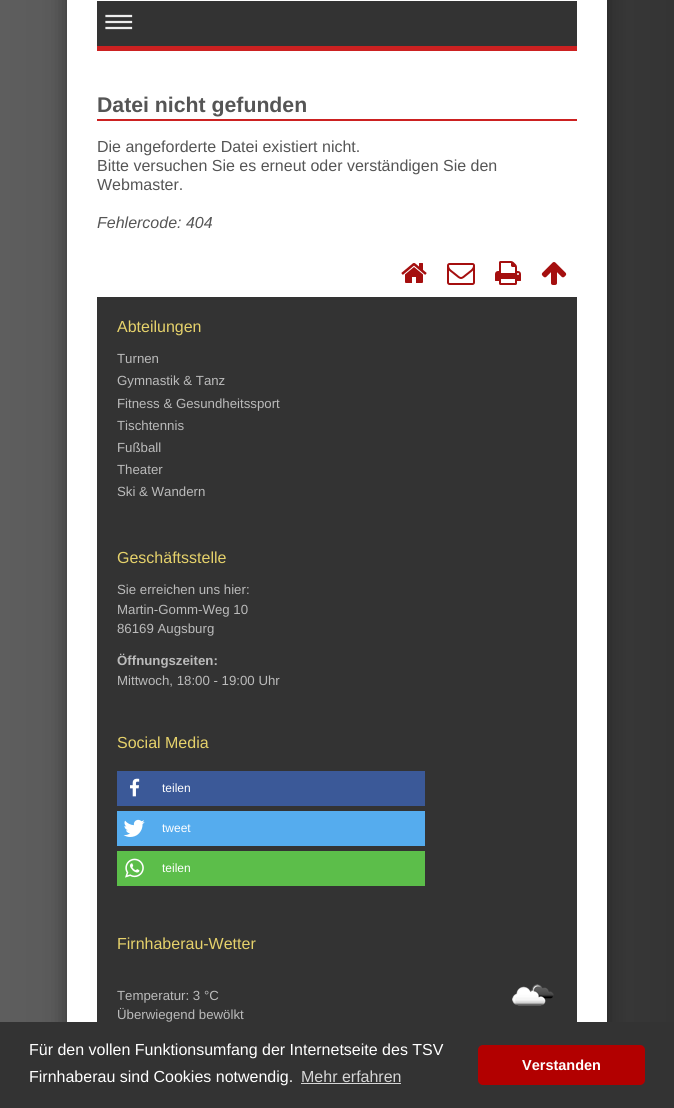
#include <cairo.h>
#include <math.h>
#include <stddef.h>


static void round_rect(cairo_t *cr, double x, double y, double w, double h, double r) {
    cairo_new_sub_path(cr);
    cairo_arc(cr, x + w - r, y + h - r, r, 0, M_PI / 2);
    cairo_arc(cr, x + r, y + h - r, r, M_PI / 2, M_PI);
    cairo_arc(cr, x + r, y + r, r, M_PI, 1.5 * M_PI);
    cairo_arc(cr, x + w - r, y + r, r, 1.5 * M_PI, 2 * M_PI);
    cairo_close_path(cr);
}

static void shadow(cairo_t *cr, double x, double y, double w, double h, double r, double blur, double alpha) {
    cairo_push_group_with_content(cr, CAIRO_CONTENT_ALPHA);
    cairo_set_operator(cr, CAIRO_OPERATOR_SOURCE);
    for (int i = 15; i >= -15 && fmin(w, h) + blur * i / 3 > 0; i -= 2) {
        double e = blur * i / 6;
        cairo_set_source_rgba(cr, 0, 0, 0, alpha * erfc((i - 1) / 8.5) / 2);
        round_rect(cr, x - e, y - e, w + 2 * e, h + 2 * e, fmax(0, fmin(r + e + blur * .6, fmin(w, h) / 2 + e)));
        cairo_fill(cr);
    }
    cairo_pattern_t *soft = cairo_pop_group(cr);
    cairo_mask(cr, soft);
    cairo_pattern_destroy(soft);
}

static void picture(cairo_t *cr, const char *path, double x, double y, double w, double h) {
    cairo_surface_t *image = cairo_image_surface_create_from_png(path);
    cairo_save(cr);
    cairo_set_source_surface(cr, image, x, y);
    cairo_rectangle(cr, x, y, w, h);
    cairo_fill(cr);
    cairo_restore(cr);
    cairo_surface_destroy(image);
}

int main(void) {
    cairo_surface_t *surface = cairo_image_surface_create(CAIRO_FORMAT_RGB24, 674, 1108);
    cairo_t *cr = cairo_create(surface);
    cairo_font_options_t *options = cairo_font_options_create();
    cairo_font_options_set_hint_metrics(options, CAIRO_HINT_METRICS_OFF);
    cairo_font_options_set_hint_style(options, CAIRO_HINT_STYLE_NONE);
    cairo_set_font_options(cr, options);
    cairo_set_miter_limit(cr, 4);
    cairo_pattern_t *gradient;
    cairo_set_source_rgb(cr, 1, 1, 1);
    cairo_paint(cr);
    gradient = cairo_pattern_create_linear(0, 484, 674, 484);
    cairo_pattern_add_color_stop_rgba(gradient, 0, 0.369, 0.369, 0.369, 1);
    cairo_pattern_add_color_stop_rgba(gradient, 1, 0.204, 0.204, 0.204, 1);
    cairo_set_source(cr, gradient);
    cairo_pattern_destroy(gradient);
    cairo_rectangle(cr, 0, 0, 674, 1022);
    cairo_fill(cr);
    cairo_set_source_rgb(cr, 0, 0, 0);
    shadow(cr, 67, -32, 540, 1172, 0, 10.5, 0.4);
    cairo_set_source_rgb(cr, 1, 1, 1);
    cairo_rectangle(cr, 67, 0, 540, 1022);
    cairo_fill(cr);
    cairo_set_source_rgb(cr, 0.2, 0.2, 0.2);
    cairo_rectangle(cr, 97, 1, 480, 45);
    cairo_fill(cr);
    cairo_set_source_rgb(cr, 0.8, 0.129, 0.129);
    cairo_rectangle(cr, 97, 46, 480, 5);
    cairo_fill(cr);
    picture(cr, "img1.png", 105, 14, 28, 16);
    cairo_rectangle(cr, 97, 119, 480, 2);
    cairo_fill(cr);
    cairo_select_font_face(cr, "Liberation Sans", CAIRO_FONT_SLANT_NORMAL, CAIRO_FONT_WEIGHT_BOLD);
    cairo_set_font_size(cr, 21.25);
    cairo_set_source_rgb(cr, 0.333, 0.333, 0.333);
    cairo_move_to(cr, 97, 112);
    cairo_show_text(cr, "Datei nicht gefunden");
    cairo_select_font_face(cr, "Liberation Sans", CAIRO_FONT_SLANT_NORMAL, CAIRO_FONT_WEIGHT_NORMAL);
    cairo_set_font_size(cr, 16);
    cairo_move_to(cr, 97, 152);
    cairo_show_text(cr, "Die angeforderte Datei existiert nicht.");
    cairo_move_to(cr, 97, 171);
    cairo_show_text(cr, "Bitte versuchen Sie es erneut oder verständigen Sie den");
    cairo_move_to(cr, 97, 190);
    cairo_show_text(cr, "Webmaster.");
    cairo_select_font_face(cr, "Liberation Sans", CAIRO_FONT_SLANT_ITALIC, CAIRO_FONT_WEIGHT_NORMAL);
    cairo_move_to(cr, 97, 228);
    cairo_show_text(cr, "Fehlercode: 404");
    picture(cr, "img2.png", 401, 263, 26, 20);
    picture(cr, "img3.png", 447, 263, 28, 22);
    picture(cr, "img4.png", 495, 261, 26, 24);
    picture(cr, "img5.png", 541, 262, 26, 23);
    cairo_set_source_rgb(cr, 0.2, 0.2, 0.2);
    cairo_rectangle(cr, 97, 297, 480, 725);
    cairo_fill(cr);
    cairo_select_font_face(cr, "Liberation Sans", CAIRO_FONT_SLANT_NORMAL, CAIRO_FONT_WEIGHT_NORMAL);
    cairo_set_source_rgb(cr, 0.902, 0.824, 0.42);
    cairo_move_to(cr, 117, 332);
    cairo_show_text(cr, "Abteilungen");
    cairo_set_font_size(cr, 13.25);
    cairo_set_source_rgb(cr, 0.733, 0.733, 0.733);
    cairo_move_to(cr, 117, 363);
    cairo_show_text(cr, "Turnen");
    cairo_move_to(cr, 117, 385);
    cairo_show_text(cr, "Gymnastik & Tanz");
    cairo_move_to(cr, 117, 408);
    cairo_show_text(cr, "Fitness & Gesundheitssport");
    cairo_move_to(cr, 117, 430);
    cairo_show_text(cr, "Tischtennis");
    cairo_move_to(cr, 117, 452);
    cairo_show_text(cr, "Fußball");
    cairo_move_to(cr, 117, 474);
    cairo_show_text(cr, "Theater");
    cairo_move_to(cr, 117, 496);
    cairo_show_text(cr, "Ski & Wandern");
    cairo_set_font_size(cr, 16);
    cairo_set_source_rgb(cr, 0.902, 0.824, 0.42);
    cairo_move_to(cr, 117, 563);
    cairo_show_text(cr, "Geschäftsstelle");
    cairo_set_font_size(cr, 13.25);
    cairo_set_source_rgb(cr, 0.733, 0.733, 0.733);
    cairo_move_to(cr, 117, 594);
    cairo_show_text(cr, "Sie erreichen uns hier:");
    cairo_move_to(cr, 117, 614);
    cairo_show_text(cr, "Martin-Gomm-Weg 10");
    cairo_move_to(cr, 117, 633);
    cairo_show_text(cr, "86169 Augsburg");
    cairo_select_font_face(cr, "Liberation Sans", CAIRO_FONT_SLANT_NORMAL, CAIRO_FONT_WEIGHT_BOLD);
    cairo_move_to(cr, 117, 665);
    cairo_show_text(cr, "Öffnungszeiten:");
    cairo_select_font_face(cr, "Liberation Sans", CAIRO_FONT_SLANT_NORMAL, CAIRO_FONT_WEIGHT_NORMAL);
    cairo_move_to(cr, 117, 685);
    cairo_show_text(cr, "Mittwoch, 18:00 - 19:00 Uhr");
    cairo_set_font_size(cr, 16);
    cairo_set_source_rgb(cr, 0.902, 0.824, 0.42);
    cairo_move_to(cr, 117, 748);
    cairo_show_text(cr, "Social Media");
    cairo_set_source_rgb(cr, 0.231, 0.349, 0.596);
    cairo_rectangle(cr, 117, 771, 308, 35);
    cairo_fill(cr);
    picture(cr, "img6.png", 130, 778, 10, 19);
    cairo_set_font_size(cr, 12);
    cairo_set_source_rgb(cr, 1, 1, 1);
    cairo_move_to(cr, 162, 792);
    cairo_show_text(cr, "teilen");
    cairo_set_source_rgb(cr, 0.333, 0.675, 0.933);
    cairo_rectangle(cr, 117, 811, 308, 35);
    cairo_fill(cr);
    picture(cr, "img7.png", 123, 819, 22, 18);
    cairo_set_source_rgb(cr, 1, 1, 1);
    cairo_move_to(cr, 162, 832);
    cairo_show_text(cr, "tweet");
    cairo_set_source_rgb(cr, 0.361, 0.745, 0.29);
    cairo_rectangle(cr, 117, 851, 308, 35);
    cairo_fill(cr);
    picture(cr, "img8.png", 125, 858, 19, 20);
    cairo_set_source_rgb(cr, 1, 1, 1);
    cairo_move_to(cr, 162, 872);
    cairo_show_text(cr, "teilen");
    cairo_set_font_size(cr, 16);
    cairo_set_source_rgb(cr, 0.902, 0.824, 0.42);
    cairo_move_to(cr, 117, 949);
    cairo_show_text(cr, "Firnhaberau-Wetter");
    cairo_set_font_size(cr, 13.25);
    cairo_set_source_rgb(cr, 0.733, 0.733, 0.733);
    cairo_move_to(cr, 117, 1000);
    cairo_show_text(cr, "Temperatur: 3 °C");
    cairo_move_to(cr, 117, 1019);
    cairo_show_text(cr, "Überwiegend bewölkt");
    picture(cr, "img9.png", 512, 984, 42, 22);
    cairo_set_source_rgb(cr, 0.2, 0.2, 0.2);
    cairo_rectangle(cr, 0, 1022, 674, 86);
    cairo_fill(cr);
    cairo_set_font_size(cr, 16);
    cairo_set_source_rgb(cr, 1, 1, 1);
    cairo_move_to(cr, 29, 1055);
    cairo_show_text(cr, "Für den vollen Funktionsumfang der Internetseite des TSV");
    cairo_move_to(cr, 29, 1082);
    cairo_show_text(cr, "Firnhaberau sind Cookies notwendig.");
    cairo_set_source_rgb(cr, 0.839, 0.839, 0.839);
    cairo_move_to(cr, 301, 1082);
    cairo_show_text(cr, "Mehr erfahren");
    cairo_rectangle(cr, 301, 1083, 100, 1);
    cairo_fill(cr);
    cairo_set_source_rgb(cr, 0.698, 0, 0);
    round_rect(cr, 478, 1045, 167, 40, 5);
    cairo_fill(cr);
    cairo_select_font_face(cr, "Liberation Sans", CAIRO_FONT_SLANT_NORMAL, CAIRO_FONT_WEIGHT_BOLD);
    cairo_set_font_size(cr, 14.5);
    cairo_set_source_rgb(cr, 1, 1, 1);
    cairo_move_to(cr, 522, 1070);
    cairo_show_text(cr, "Verstanden");
    cairo_surface_write_to_png(surface, "page.png");
    cairo_font_options_destroy(options);
    cairo_destroy(cr);
    cairo_surface_destroy(surface);
    return 0;
}
